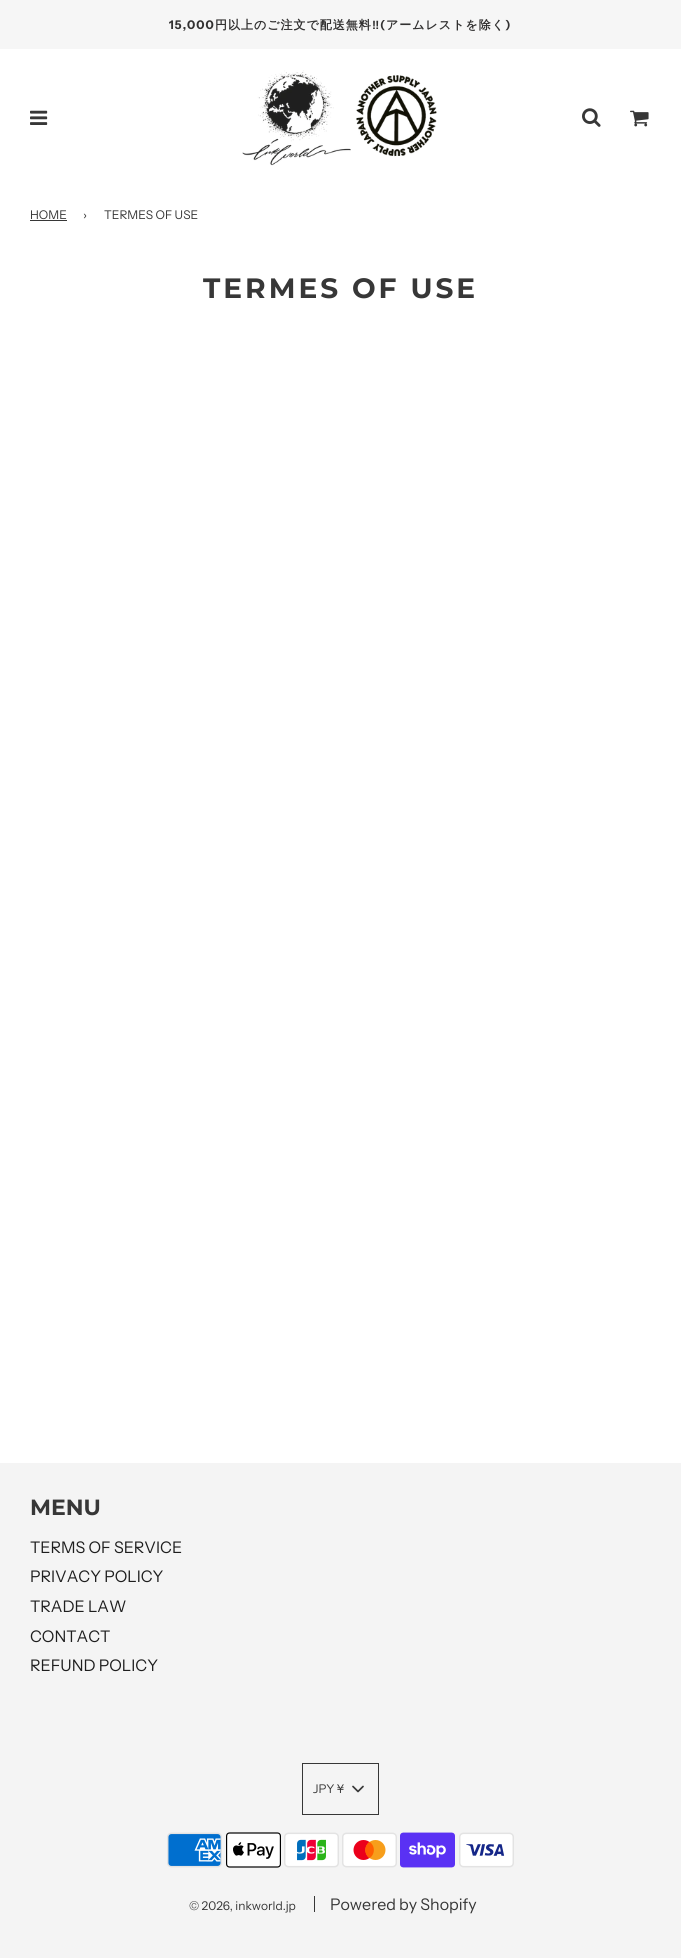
#include <cairo.h>
#include <math.h>
#include <stddef.h>


static void spaced_text(cairo_t *cr, double x, double y, const char *s, double letter, double word) {
    cairo_move_to(cr, x, y);
    while (*s) {
        char ch[5] = {0};
        int n = 0;
        do ch[n++] = *s++; while ((*s & 0xC0) == 0x80);
        cairo_show_text(cr, ch);
        cairo_rel_move_to(cr, letter + word * (*ch == ' '), 0);
    }
}

static void picture(cairo_t *cr, const char *path, double x, double y, double w, double h) {
    cairo_surface_t *image = cairo_image_surface_create_from_png(path);
    cairo_save(cr);
    cairo_set_source_surface(cr, image, x, y);
    cairo_rectangle(cr, x, y, w, h);
    cairo_fill(cr);
    cairo_restore(cr);
    cairo_surface_destroy(image);
}

int main(void) {
    cairo_surface_t *surface = cairo_image_surface_create(CAIRO_FORMAT_RGB24, 681, 1958);
    cairo_t *cr = cairo_create(surface);
    cairo_font_options_t *options = cairo_font_options_create();
    cairo_font_options_set_hint_metrics(options, CAIRO_HINT_METRICS_OFF);
    cairo_font_options_set_hint_style(options, CAIRO_HINT_STYLE_NONE);
    cairo_set_font_options(cr, options);
    cairo_set_miter_limit(cr, 4);
    cairo_set_source_rgb(cr, 1, 1, 1);
    cairo_paint(cr);
    cairo_set_source_rgb(cr, 0.961, 0.961, 0.961);
    cairo_rectangle(cr, 0, 0, 681, 49);
    cairo_fill(cr);
    cairo_select_font_face(cr, "Instrument Sans", CAIRO_FONT_SLANT_NORMAL, CAIRO_FONT_WEIGHT_BOLD);
    cairo_set_font_size(cr, 12);
    cairo_set_source_rgb(cr, 0.196, 0.192, 0.192);
    spaced_text(cr, 169, 29, "15,000", 1, 0);
    cairo_select_font_face(cr, "WenQuanYi Zen Hei", CAIRO_FONT_SLANT_NORMAL, CAIRO_FONT_WEIGHT_BOLD);
    spaced_text(cr, 215, 29, "円以上のご注文で配送無料", 1, 0);
    cairo_select_font_face(cr, "Liberation Sans", CAIRO_FONT_SLANT_NORMAL, CAIRO_FONT_WEIGHT_BOLD);
    spaced_text(cr, 372, 29, "‼", 1, 0);
    cairo_select_font_face(cr, "Instrument Sans", CAIRO_FONT_SLANT_NORMAL, CAIRO_FONT_WEIGHT_BOLD);
    spaced_text(cr, 380, 29, "(", 1, 0);
    cairo_select_font_face(cr, "WenQuanYi Zen Hei", CAIRO_FONT_SLANT_NORMAL, CAIRO_FONT_WEIGHT_BOLD);
    spaced_text(cr, 386, 29, "アームレストを除く", 1, 0);
    cairo_select_font_face(cr, "Instrument Sans", CAIRO_FONT_SLANT_NORMAL, CAIRO_FONT_WEIGHT_BOLD);
    spaced_text(cr, 505, 29, ")", 1, 0);
    picture(cr, "img1.png", 30, 110, 18, 15);
    picture(cr, "img2.png", 242, 70, 195, 96);
    picture(cr, "img3.png", 582, 108, 19, 19);
    picture(cr, "img4.png", 630, 110, 19, 17);
    cairo_select_font_face(cr, "Instrument Sans", CAIRO_FONT_SLANT_NORMAL, CAIRO_FONT_WEIGHT_NORMAL);
    cairo_set_source_rgb(cr, 0.216, 0.216, 0.216);
    cairo_move_to(cr, 30, 219);
    cairo_show_text(cr, "HOME");
    cairo_rectangle(cr, 30, 220, 37, 1);
    cairo_fill(cr);
    cairo_move_to(cr, 83, 219);
    cairo_show_text(cr, "›");
    cairo_move_to(cr, 104, 219);
    cairo_show_text(cr, "TERMES OF USE");
    cairo_select_font_face(cr, "Montserrat", CAIRO_FONT_SLANT_NORMAL, CAIRO_FONT_WEIGHT_BOLD);
    cairo_set_font_size(cr, 28);
    spaced_text(cr, 203, 298, "TERMES OF USE", 3, 0);
    cairo_set_source_rgb(cr, 0.957, 0.957, 0.957);
    cairo_rectangle(cr, 0, 1463, 681, 495);
    cairo_fill(cr);
    cairo_set_font_size(cr, 22);
    cairo_set_source_rgb(cr, 0.216, 0.216, 0.216);
    cairo_move_to(cr, 30, 1515);
    cairo_show_text(cr, "MENU");
    cairo_select_font_face(cr, "Instrument Sans", CAIRO_FONT_SLANT_NORMAL, CAIRO_FONT_WEIGHT_NORMAL);
    cairo_set_font_size(cr, 16);
    cairo_set_source_rgb(cr, 0.118, 0.118, 0.118);
    cairo_move_to(cr, 30, 1553);
    cairo_show_text(cr, "TERMS OF SERVICE");
    cairo_move_to(cr, 30, 1582);
    cairo_show_text(cr, "PRIVACY POLICY");
    cairo_move_to(cr, 30, 1612);
    cairo_show_text(cr, "TRADE LAW");
    cairo_move_to(cr, 30, 1642);
    cairo_show_text(cr, "CONTACT");
    cairo_move_to(cr, 30, 1671);
    cairo_show_text(cr, "REFUND POLICY");
    cairo_rectangle(cr, 302.5, 1763.5, 76, 51);
    cairo_set_source_rgb(cr, 0.216, 0.216, 0.216);
    cairo_set_line_width(cr, 1);
    cairo_stroke(cr);
    cairo_set_font_size(cr, 12);
    cairo_move_to(cr, 313, 1793);
    cairo_show_text(cr, "JPY ¥");
    cairo_new_path(cr);
    cairo_move_to(cr, 353, 1786.5);
    cairo_line_to(cr, 358, 1791.5);
    cairo_line_to(cr, 363, 1786.5);
    cairo_set_line_width(cr, 1.7);
    cairo_set_line_cap(cr, CAIRO_LINE_CAP_ROUND);
    cairo_set_line_join(cr, CAIRO_LINE_JOIN_ROUND);
    cairo_stroke(cr);
    picture(cr, "img5.png", 167, 1832, 55, 36);
    picture(cr, "img6.png", 226, 1832, 55, 36);
    picture(cr, "img7.png", 284, 1832, 55, 36);
    picture(cr, "img8.png", 342, 1832, 55, 36);
    picture(cr, "img9.png", 400, 1832, 55, 36);
    picture(cr, "img10.png", 459, 1832, 55, 36);
    cairo_move_to(cr, 189, 1910);
    cairo_show_text(cr, "© 2026, inkworld.jp");
    cairo_rectangle(cr, 314, 1896, 1, 16);
    cairo_fill(cr);
    cairo_set_font_size(cr, 16);
    cairo_move_to(cr, 330, 1910);
    cairo_show_text(cr, "Powered by Shopify");
    cairo_surface_write_to_png(surface, "page.png");
    cairo_font_options_destroy(options);
    cairo_destroy(cr);
    cairo_surface_destroy(surface);
    return 0;
}
